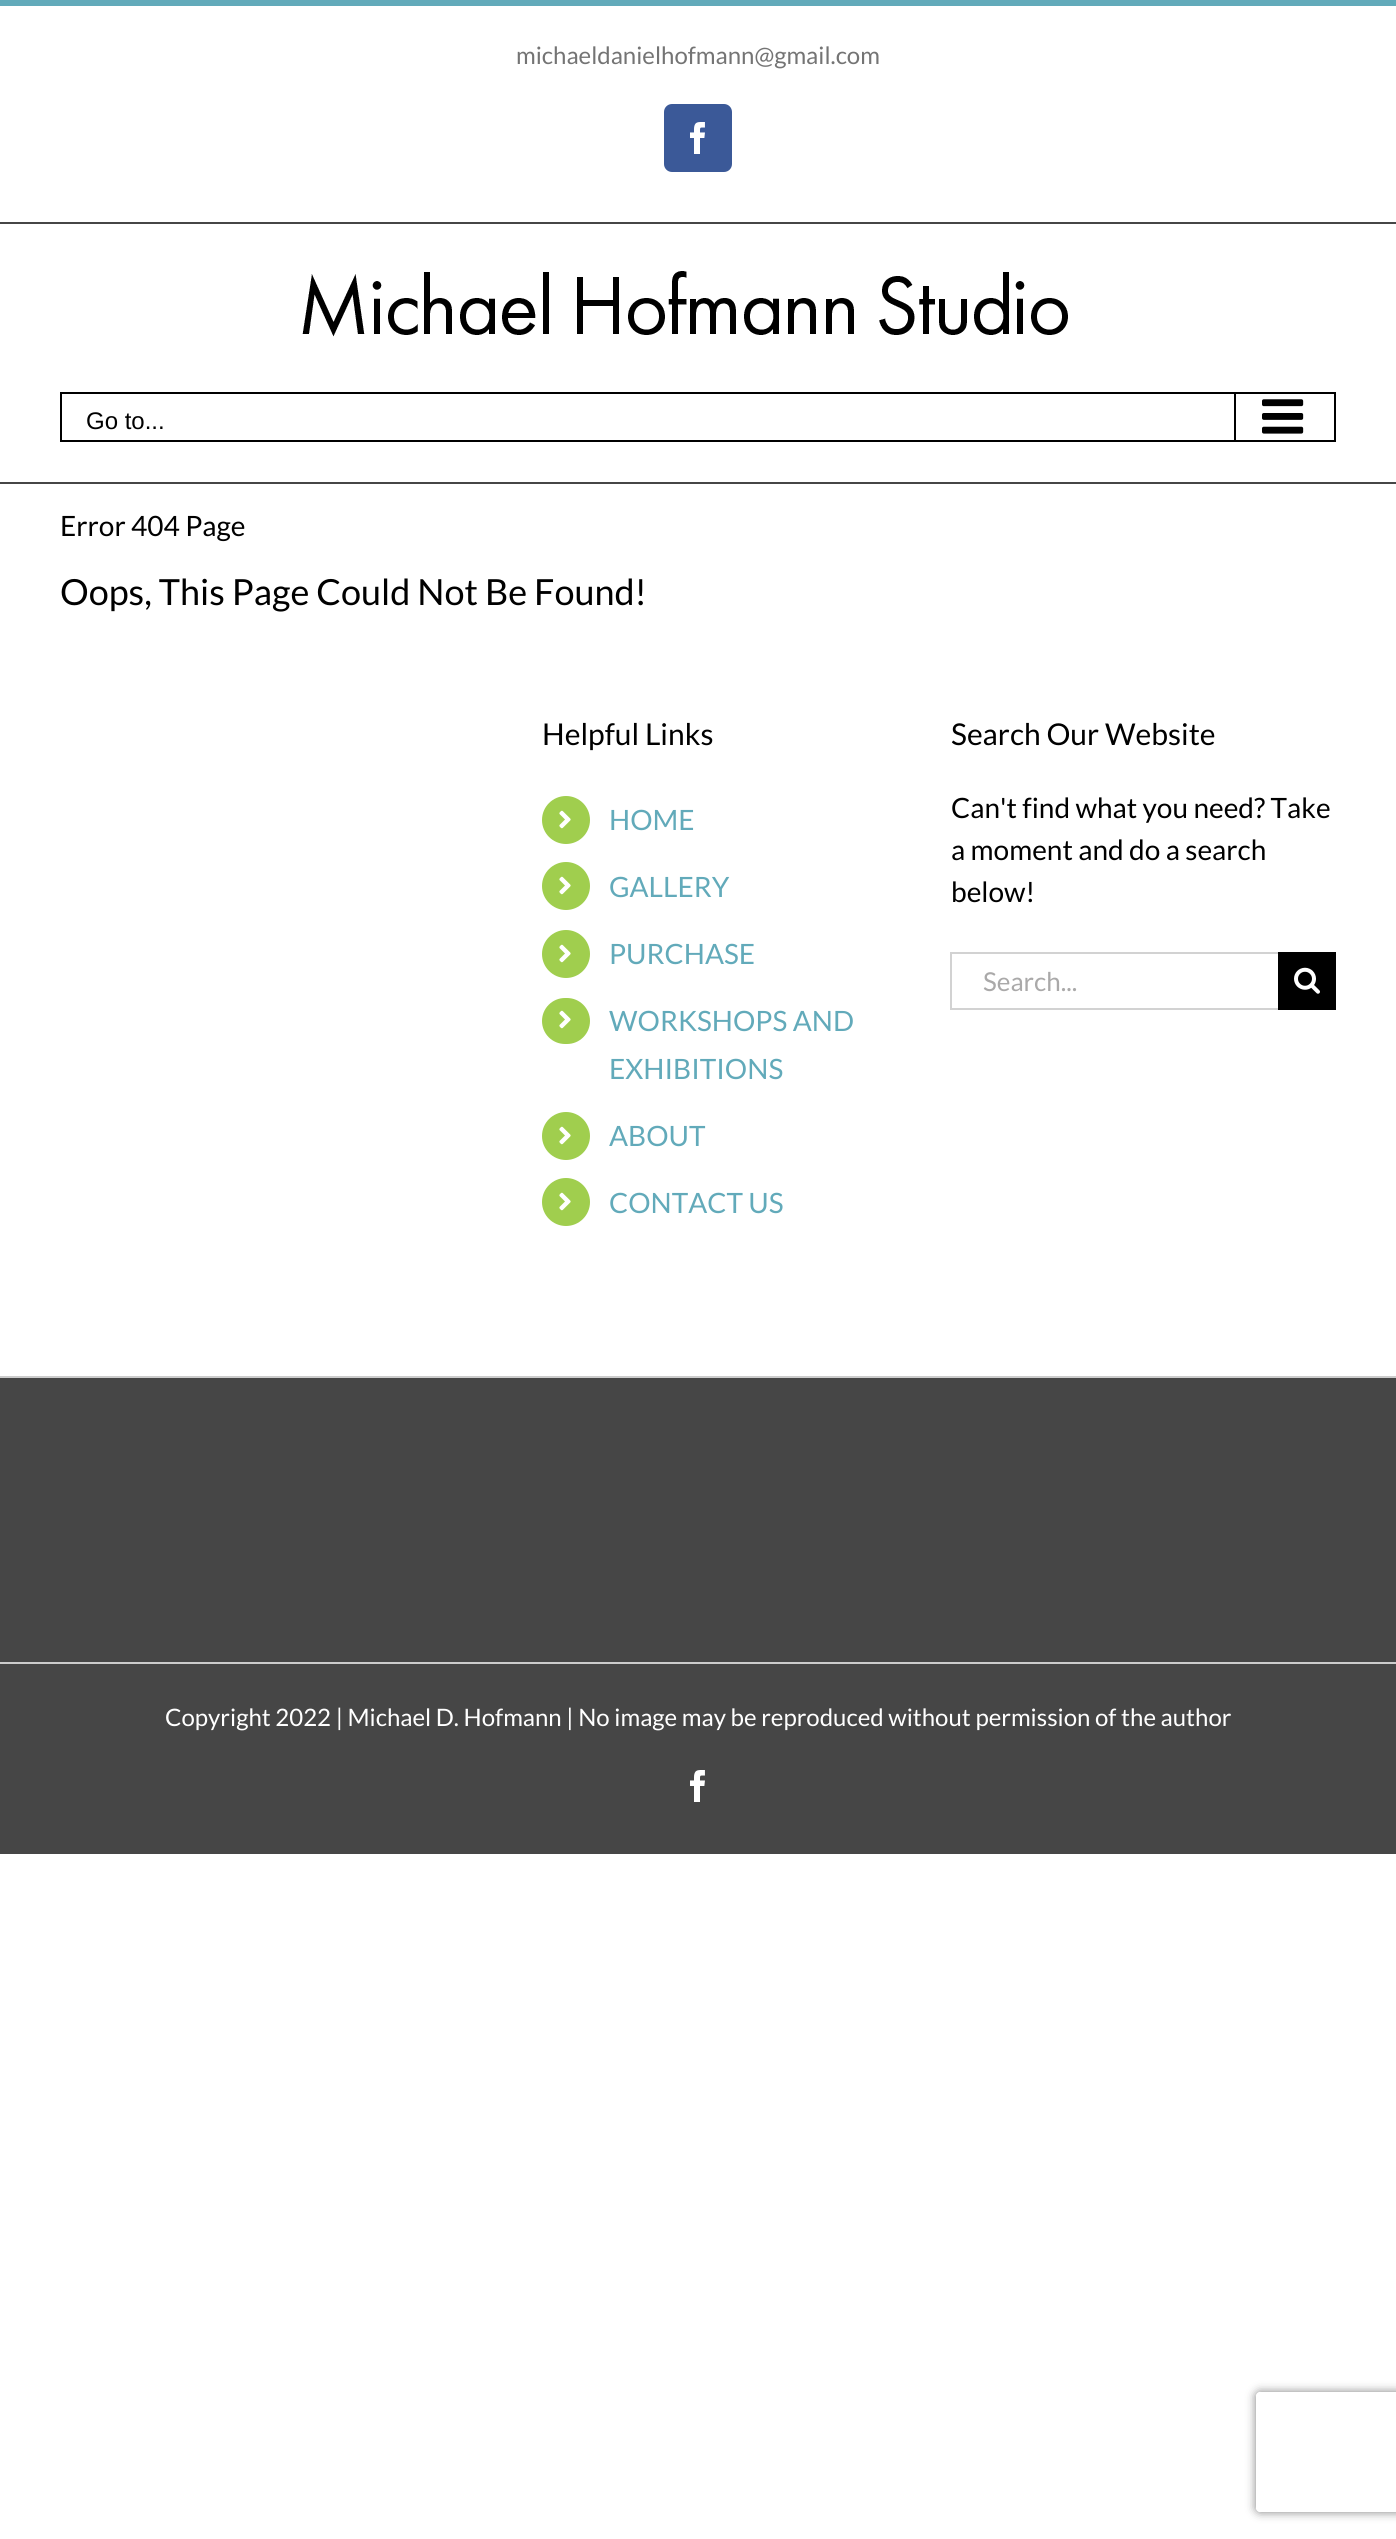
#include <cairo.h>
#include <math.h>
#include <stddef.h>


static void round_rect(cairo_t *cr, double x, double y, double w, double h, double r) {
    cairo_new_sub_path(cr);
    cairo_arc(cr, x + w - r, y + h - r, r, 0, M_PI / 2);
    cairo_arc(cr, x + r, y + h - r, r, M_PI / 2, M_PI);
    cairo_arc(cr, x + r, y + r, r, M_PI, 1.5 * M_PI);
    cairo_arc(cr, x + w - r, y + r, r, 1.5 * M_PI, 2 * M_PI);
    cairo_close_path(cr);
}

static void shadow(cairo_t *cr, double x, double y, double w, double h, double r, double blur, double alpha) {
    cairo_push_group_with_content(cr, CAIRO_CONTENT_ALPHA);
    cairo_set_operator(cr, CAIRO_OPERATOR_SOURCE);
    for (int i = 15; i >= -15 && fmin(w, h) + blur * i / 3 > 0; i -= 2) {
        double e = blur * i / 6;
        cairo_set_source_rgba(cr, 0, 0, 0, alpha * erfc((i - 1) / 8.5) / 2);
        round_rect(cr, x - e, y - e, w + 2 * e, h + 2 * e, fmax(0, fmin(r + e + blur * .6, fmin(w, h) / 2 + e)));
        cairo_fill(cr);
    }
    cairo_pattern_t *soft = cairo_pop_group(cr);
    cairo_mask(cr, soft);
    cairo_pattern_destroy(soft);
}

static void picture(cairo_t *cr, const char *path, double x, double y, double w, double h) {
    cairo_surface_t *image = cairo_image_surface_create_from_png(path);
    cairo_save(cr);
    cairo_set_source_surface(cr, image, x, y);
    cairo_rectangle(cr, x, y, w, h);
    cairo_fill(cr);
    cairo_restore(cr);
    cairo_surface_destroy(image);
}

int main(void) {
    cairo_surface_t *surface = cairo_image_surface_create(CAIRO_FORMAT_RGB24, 1396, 2539);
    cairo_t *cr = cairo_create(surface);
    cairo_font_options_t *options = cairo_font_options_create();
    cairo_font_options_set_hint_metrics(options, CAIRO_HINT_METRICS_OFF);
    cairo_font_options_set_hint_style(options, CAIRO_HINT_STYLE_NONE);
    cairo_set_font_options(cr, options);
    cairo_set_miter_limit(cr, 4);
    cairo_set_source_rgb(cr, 1, 1, 1);
    cairo_paint(cr);
    cairo_set_source_rgb(cr, 0.384, 0.667, 0.729);
    cairo_rectangle(cr, 0, 0, 1396, 6);
    cairo_fill(cr);
    cairo_set_source_rgb(cr, 0.275, 0.275, 0.275);
    cairo_rectangle(cr, 0, 222, 1396, 2);
    cairo_fill(cr);
    cairo_select_font_face(cr, "Lato", CAIRO_FONT_SLANT_NORMAL, CAIRO_FONT_WEIGHT_NORMAL);
    cairo_set_font_size(cr, 24);
    cairo_set_source_rgb(cr, 0.455, 0.455, 0.455);
    cairo_move_to(cr, 516, 64);
    cairo_show_text(cr, "michaeldanielhofmann@gmail.com");
    cairo_set_source_rgb(cr, 0.231, 0.349, 0.596);
    round_rect(cr, 665, 105, 66, 66, 7);
    cairo_fill_preserve(cr);
    cairo_stroke(cr);
    picture(cr, "img1.png", 690, 122, 15, 32);
    cairo_set_source_rgb(cr, 0.275, 0.275, 0.275);
    cairo_rectangle(cr, 0, 482, 1396, 2);
    cairo_fill(cr);
    picture(cr, "img2.png", 302, 271, 766, 66);
    cairo_rectangle(cr, 61, 393, 1274, 48);
    cairo_set_source_rgb(cr, 0, 0, 0);
    cairo_stroke(cr);
    cairo_select_font_face(cr, "Liberation Sans", CAIRO_FONT_SLANT_NORMAL, CAIRO_FONT_WEIGHT_NORMAL);
    cairo_move_to(cr, 86, 429);
    cairo_show_text(cr, "Go to...");
    cairo_rectangle(cr, 1234, 394, 2, 46);
    cairo_fill(cr);
    picture(cr, "img3.png", 1262, 399, 42, 35);
    cairo_select_font_face(cr, "Lato", CAIRO_FONT_SLANT_NORMAL, CAIRO_FONT_WEIGHT_NORMAL);
    cairo_set_font_size(cr, 28);
    cairo_move_to(cr, 60, 536);
    cairo_show_text(cr, "Error 404 Page");
    cairo_set_font_size(cr, 36);
    cairo_move_to(cr, 60, 605);
    cairo_show_text(cr, "Oops, This Page Could Not Be Found!");
    cairo_set_font_size(cr, 30);
    cairo_move_to(cr, 542, 745);
    cairo_show_text(cr, "Helpful Links");
    cairo_set_source_rgb(cr, 0.627, 0.808, 0.306);
    cairo_new_path(cr);
    cairo_arc(cr, 566, 820, 24, 0, 2 * M_PI);
    cairo_fill(cr);
    picture(cr, "img4.png", 559, 810, 12, 19);
    cairo_set_font_size(cr, 28);
    cairo_set_source_rgb(cr, 0.384, 0.667, 0.729);
    cairo_move_to(cr, 609, 830);
    cairo_show_text(cr, "HOME");
    cairo_set_source_rgb(cr, 0.627, 0.808, 0.306);
    cairo_new_path(cr);
    cairo_arc(cr, 566, 886, 24, 0, 2 * M_PI);
    cairo_fill(cr);
    picture(cr, "img4.png", 559, 876, 12, 19);
    cairo_set_source_rgb(cr, 0.384, 0.667, 0.729);
    cairo_move_to(cr, 609, 897);
    cairo_show_text(cr, "GALLERY");
    cairo_set_source_rgb(cr, 0.627, 0.808, 0.306);
    cairo_new_path(cr);
    cairo_arc(cr, 566, 954, 24, 0, 2 * M_PI);
    cairo_fill(cr);
    picture(cr, "img4.png", 559, 944, 12, 19);
    cairo_set_source_rgb(cr, 0.384, 0.667, 0.729);
    cairo_move_to(cr, 609, 964);
    cairo_show_text(cr, "PURCHASE");
    cairo_set_source_rgb(cr, 0.627, 0.808, 0.306);
    round_rect(cr, 542, 998, 48, 46, 23);
    cairo_fill(cr);
    picture(cr, "img4.png", 559, 1010, 12, 19);
    cairo_set_source_rgb(cr, 0.384, 0.667, 0.729);
    cairo_move_to(cr, 609, 1031);
    cairo_show_text(cr, "WORKSHOPS AND");
    cairo_move_to(cr, 609, 1079);
    cairo_show_text(cr, "EXHIBITIONS");
    cairo_set_source_rgb(cr, 0.627, 0.808, 0.306);
    cairo_new_path(cr);
    cairo_arc(cr, 566, 1136, 24, 0, 2 * M_PI);
    cairo_fill(cr);
    picture(cr, "img4.png", 559, 1126, 12, 19);
    cairo_set_source_rgb(cr, 0.384, 0.667, 0.729);
    cairo_move_to(cr, 609, 1146);
    cairo_show_text(cr, "ABOUT");
    cairo_set_source_rgb(cr, 0.627, 0.808, 0.306);
    cairo_new_path(cr);
    cairo_arc(cr, 566, 1202, 24, 0, 2 * M_PI);
    cairo_fill(cr);
    picture(cr, "img4.png", 559, 1192, 12, 19);
    cairo_set_source_rgb(cr, 0.384, 0.667, 0.729);
    cairo_move_to(cr, 609, 1213);
    cairo_show_text(cr, "CONTACT US");
    cairo_set_font_size(cr, 30);
    cairo_set_source_rgb(cr, 0, 0, 0);
    cairo_move_to(cr, 951, 745);
    cairo_show_text(cr, "Search Our Website");
    cairo_set_font_size(cr, 28);
    cairo_move_to(cr, 951, 818);
    cairo_show_text(cr, "Can't find what you need? Take");
    cairo_move_to(cr, 951, 860);
    cairo_show_text(cr, "a moment and do a search");
    cairo_move_to(cr, 951, 902);
    cairo_show_text(cr, "below!");
    cairo_set_source_rgb(cr, 0.824, 0.824, 0.824);
    cairo_rectangle(cr, 950, 952, 328, 2);
    cairo_fill(cr);
    cairo_rectangle(cr, 950, 1008, 328, 2);
    cairo_fill(cr);
    cairo_rectangle(cr, 950, 952, 2, 58);
    cairo_fill(cr);
    cairo_set_font_size(cr, 26);
    cairo_set_source_rgb(cr, 0.667, 0.663, 0.663);
    cairo_move_to(cr, 983, 991);
    cairo_show_text(cr, "Search...");
    cairo_set_source_rgb(cr, 0, 0, 0);
    cairo_rectangle(cr, 1278, 952, 58, 58);
    cairo_fill(cr);
    picture(cr, "img5.png", 1294, 967, 26, 27);
    cairo_set_source_rgb(cr, 0.275, 0.275, 0.275);
    cairo_rectangle(cr, 0, 1378, 1396, 284);
    cairo_fill(cr);
    cairo_set_source_rgb(cr, 0.8, 0.8, 0.8);
    cairo_rectangle(cr, 0, 1376, 1396, 2);
    cairo_fill(cr);
    cairo_set_source_rgb(cr, 0.275, 0.275, 0.275);
    cairo_rectangle(cr, 0, 1664, 1396, 190);
    cairo_fill(cr);
    cairo_set_source_rgb(cr, 0.8, 0.8, 0.8);
    cairo_rectangle(cr, 0, 1662, 1396, 2);
    cairo_fill(cr);
    cairo_set_font_size(cr, 24);
    cairo_set_source_rgb(cr, 1, 1, 1);
    cairo_move_to(cr, 165, 1726);
    cairo_show_text(cr, "Copyright 2022 | Michael D. Hofmann | No image may be reproduced without permission of the author");
    picture(cr, "img6.png", 690, 1770, 15, 32);
    cairo_save(cr);
    cairo_set_fill_rule(cr, CAIRO_FILL_RULE_EVEN_ODD);
    cairo_new_path(cr);
    cairo_move_to(cr, 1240, 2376);
    cairo_line_to(cr, 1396, 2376);
    cairo_line_to(cr, 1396, 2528);
    cairo_line_to(cr, 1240, 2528);
    cairo_close_path(cr);
    cairo_move_to(cr, 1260, 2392);
    cairo_line_to(cr, 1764, 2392);
    cairo_curve_to(cr, 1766, 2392, 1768, 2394, 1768, 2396);
    cairo_line_to(cr, 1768, 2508);
    cairo_curve_to(cr, 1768, 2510, 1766, 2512, 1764, 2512);
    cairo_line_to(cr, 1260, 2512);
    cairo_curve_to(cr, 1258, 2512, 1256, 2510, 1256, 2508);
    cairo_line_to(cr, 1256, 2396);
    cairo_curve_to(cr, 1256, 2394, 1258, 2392, 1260, 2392);
    cairo_close_path(cr);
    cairo_clip(cr);
    cairo_set_source_rgb(cr, 0.502, 0.502, 0.502);
    shadow(cr, 1256, 2392, 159, 120, 4, 5, 1);
    cairo_restore(cr);
    cairo_surface_write_to_png(surface, "page.png");
    cairo_font_options_destroy(options);
    cairo_destroy(cr);
    cairo_surface_destroy(surface);
    return 0;
}
